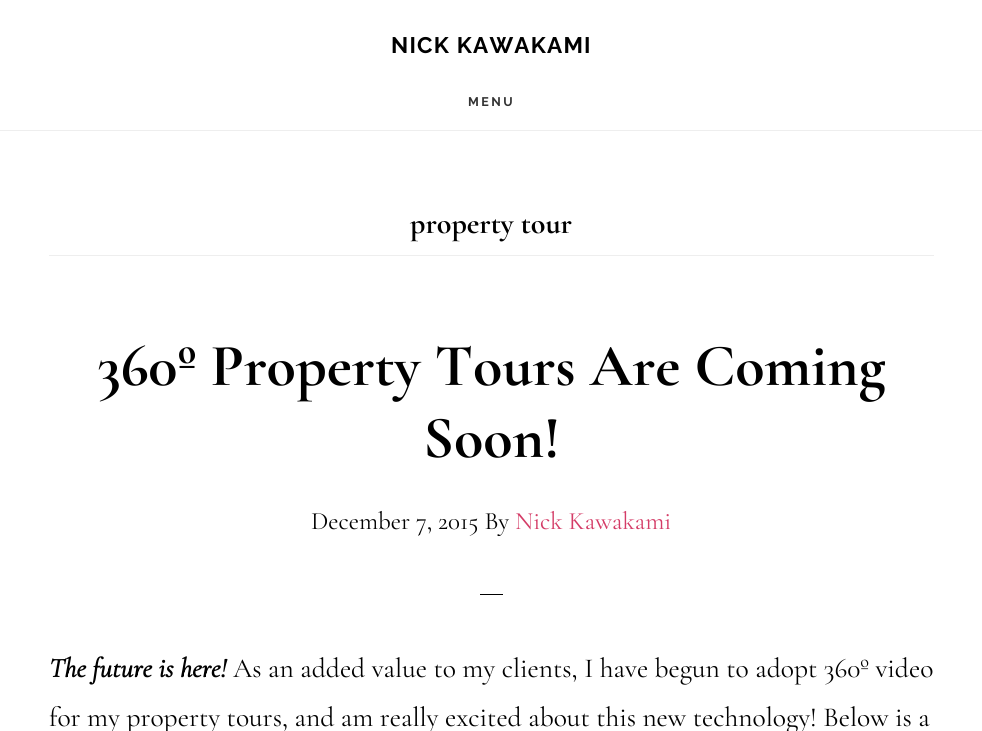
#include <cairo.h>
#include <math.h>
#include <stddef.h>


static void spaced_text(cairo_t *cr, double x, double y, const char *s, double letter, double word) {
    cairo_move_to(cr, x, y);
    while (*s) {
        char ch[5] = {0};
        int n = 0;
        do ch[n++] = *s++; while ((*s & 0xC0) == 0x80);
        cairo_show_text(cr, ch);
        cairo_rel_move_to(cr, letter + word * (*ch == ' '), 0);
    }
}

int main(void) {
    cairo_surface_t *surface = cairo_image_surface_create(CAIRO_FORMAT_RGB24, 982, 731);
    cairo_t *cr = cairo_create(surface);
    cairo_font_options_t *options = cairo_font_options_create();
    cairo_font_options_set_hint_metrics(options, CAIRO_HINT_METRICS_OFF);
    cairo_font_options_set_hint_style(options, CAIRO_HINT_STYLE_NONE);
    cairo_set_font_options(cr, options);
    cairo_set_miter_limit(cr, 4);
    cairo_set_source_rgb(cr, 1, 1, 1);
    cairo_paint(cr);
    cairo_set_source_rgb(cr, 0.933, 0.933, 0.933);
    cairo_rectangle(cr, 0, 130, 982, 1);
    cairo_fill(cr);
    cairo_select_font_face(cr, "Raleway Thin", CAIRO_FONT_SLANT_NORMAL, CAIRO_FONT_WEIGHT_NORMAL);
    cairo_set_font_size(cr, 22.5);
    cairo_set_source_rgb(cr, 0, 0, 0);
    spaced_text(cr, 391, 53, "NICK KAWAKAMI", 1.25, 0);
    cairo_set_font_size(cr, 12.5);
    cairo_set_source_rgb(cr, 0.2, 0.2, 0.2);
    spaced_text(cr, 468, 106, "MENU", 2.5, 0);
    cairo_set_source_rgb(cr, 0.933, 0.933, 0.933);
    cairo_rectangle(cr, 49, 255, 885, 1);
    cairo_fill(cr);
    cairo_select_font_face(cr, "Cormorant Garamond", CAIRO_FONT_SLANT_NORMAL, CAIRO_FONT_WEIGHT_BOLD);
    cairo_set_font_size(cr, 30);
    cairo_set_source_rgb(cr, 0, 0, 0);
    cairo_move_to(cr, 410, 233);
    cairo_show_text(cr, "property tour");
    cairo_set_font_size(cr, 60);
    cairo_move_to(cr, 97, 385);
    cairo_show_text(cr, "360º Property Tours Are Coming");
    cairo_move_to(cr, 423, 457);
    cairo_show_text(cr, "Soon!");
    cairo_select_font_face(cr, "Cormorant Garamond", CAIRO_FONT_SLANT_NORMAL, CAIRO_FONT_WEIGHT_NORMAL);
    cairo_set_font_size(cr, 25);
    cairo_move_to(cr, 311, 529);
    cairo_show_text(cr, "December 7, 2015 By");
    cairo_set_source_rgb(cr, 0.831, 0.235, 0.404);
    cairo_move_to(cr, 515, 529);
    cairo_show_text(cr, "Nick Kawakami");
    cairo_set_source_rgb(cr, 0, 0, 0);
    cairo_rectangle(cr, 480, 594, 23, 1);
    cairo_fill(cr);
    cairo_select_font_face(cr, "Cormorant Garamond", CAIRO_FONT_SLANT_ITALIC, CAIRO_FONT_WEIGHT_BOLD);
    cairo_set_font_size(cr, 27.5);
    cairo_move_to(cr, 49, 677);
    cairo_show_text(cr, "The future is here!");
    cairo_select_font_face(cr, "Cormorant Garamond", CAIRO_FONT_SLANT_NORMAL, CAIRO_FONT_WEIGHT_NORMAL);
    cairo_move_to(cr, 233, 677);
    cairo_show_text(cr, "As an added value to my clients, I have begun to adopt 360º video");
    cairo_move_to(cr, 49, 726);
    cairo_show_text(cr, "for my property tours, and am really excited about this new technology! Below is a");
    cairo_surface_write_to_png(surface, "page.png");
    cairo_font_options_destroy(options);
    cairo_destroy(cr);
    cairo_surface_destroy(surface);
    return 0;
}
